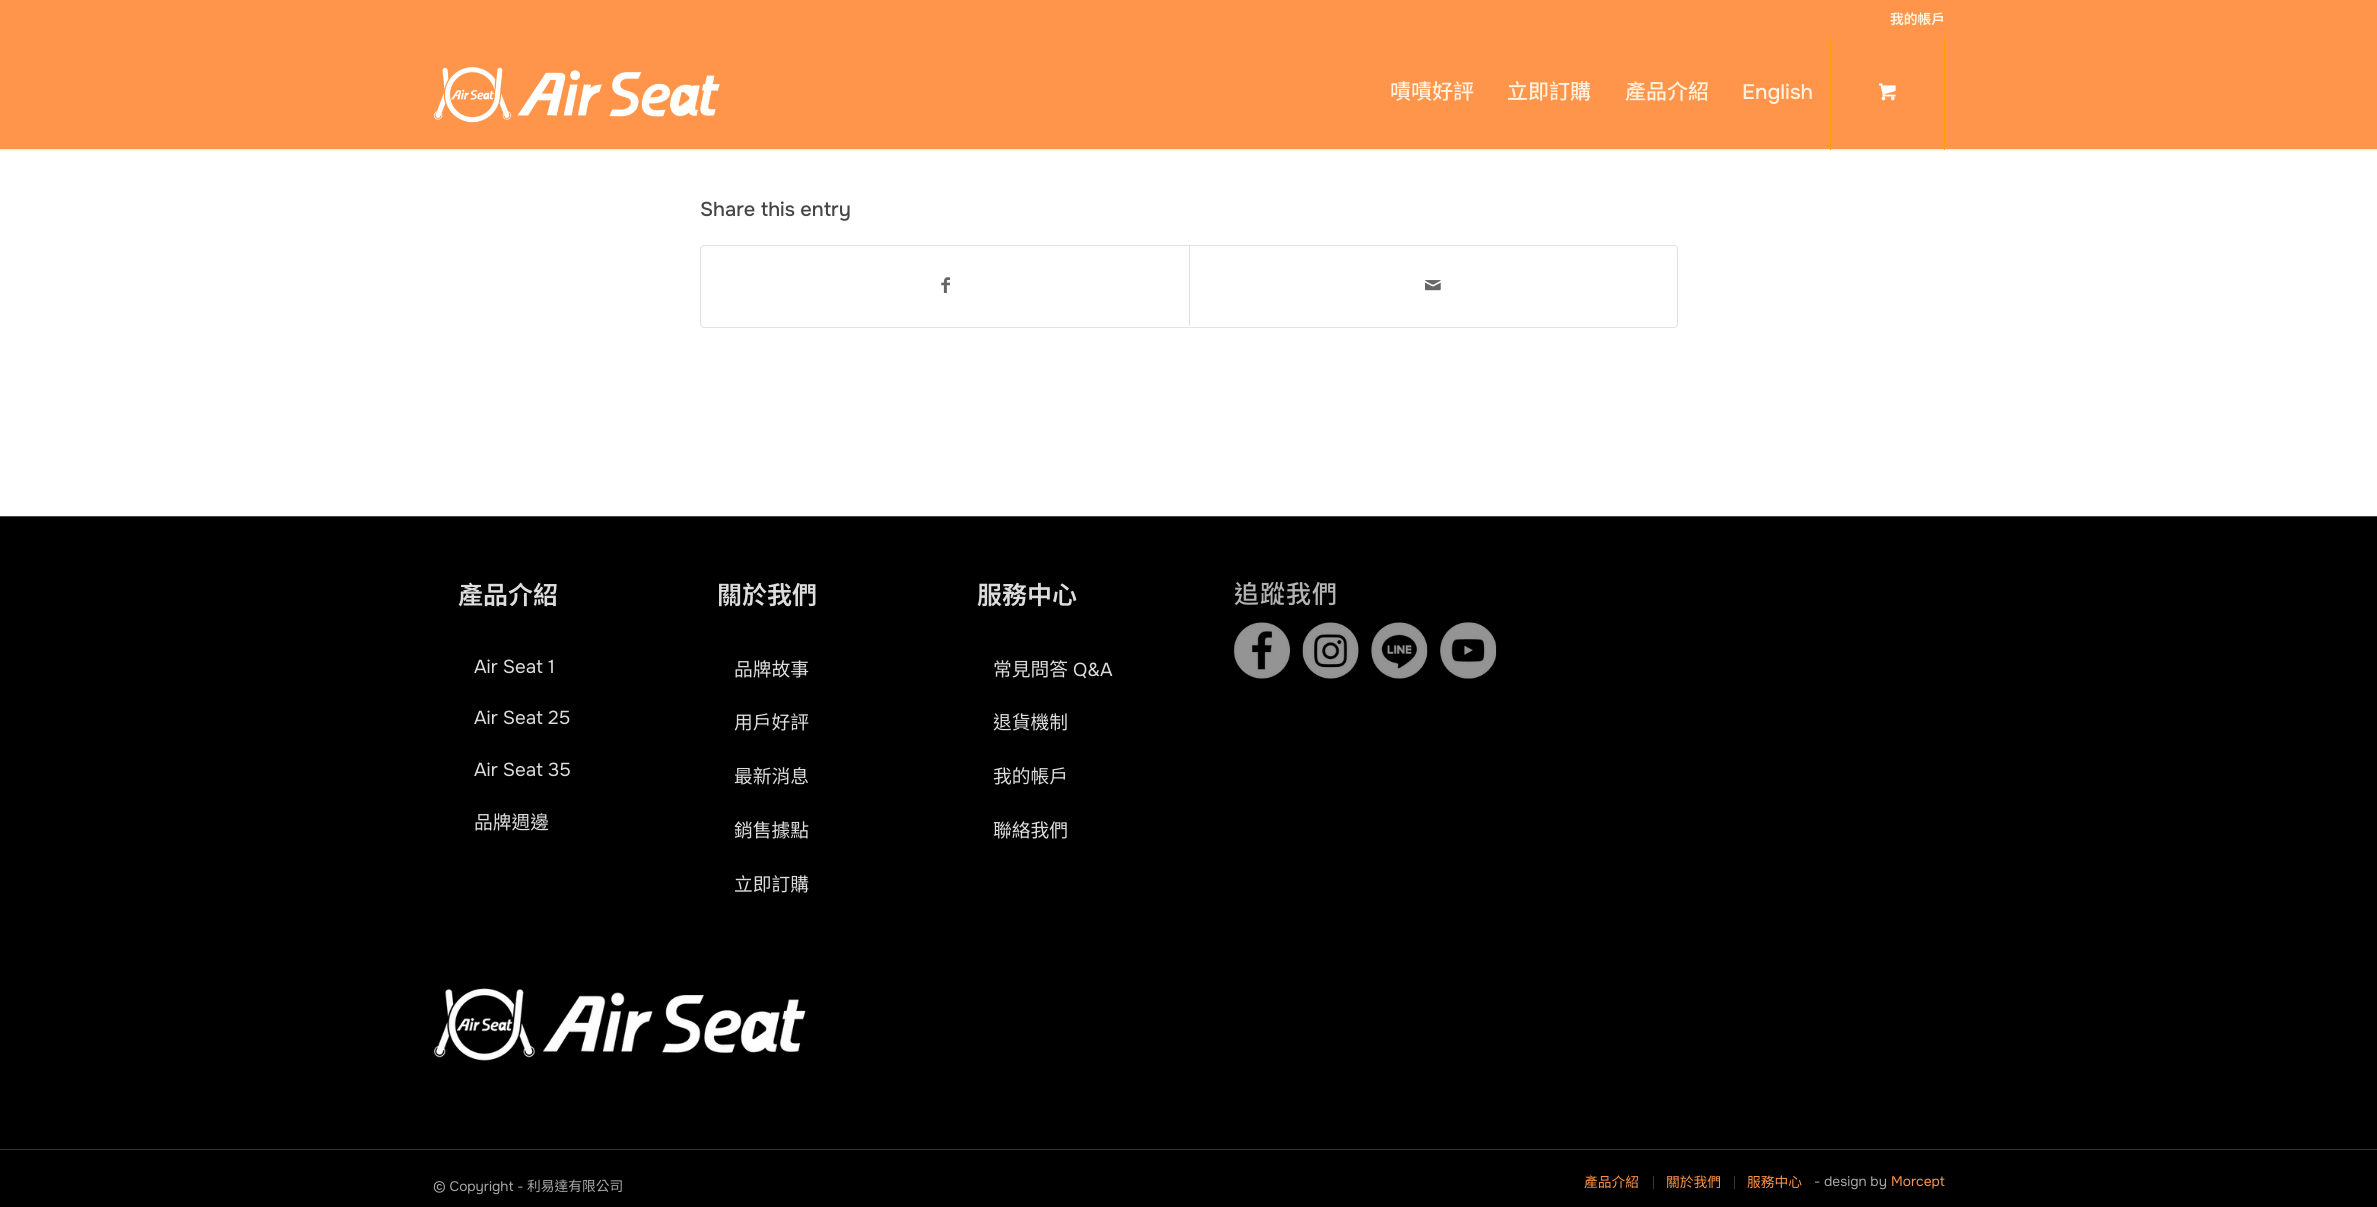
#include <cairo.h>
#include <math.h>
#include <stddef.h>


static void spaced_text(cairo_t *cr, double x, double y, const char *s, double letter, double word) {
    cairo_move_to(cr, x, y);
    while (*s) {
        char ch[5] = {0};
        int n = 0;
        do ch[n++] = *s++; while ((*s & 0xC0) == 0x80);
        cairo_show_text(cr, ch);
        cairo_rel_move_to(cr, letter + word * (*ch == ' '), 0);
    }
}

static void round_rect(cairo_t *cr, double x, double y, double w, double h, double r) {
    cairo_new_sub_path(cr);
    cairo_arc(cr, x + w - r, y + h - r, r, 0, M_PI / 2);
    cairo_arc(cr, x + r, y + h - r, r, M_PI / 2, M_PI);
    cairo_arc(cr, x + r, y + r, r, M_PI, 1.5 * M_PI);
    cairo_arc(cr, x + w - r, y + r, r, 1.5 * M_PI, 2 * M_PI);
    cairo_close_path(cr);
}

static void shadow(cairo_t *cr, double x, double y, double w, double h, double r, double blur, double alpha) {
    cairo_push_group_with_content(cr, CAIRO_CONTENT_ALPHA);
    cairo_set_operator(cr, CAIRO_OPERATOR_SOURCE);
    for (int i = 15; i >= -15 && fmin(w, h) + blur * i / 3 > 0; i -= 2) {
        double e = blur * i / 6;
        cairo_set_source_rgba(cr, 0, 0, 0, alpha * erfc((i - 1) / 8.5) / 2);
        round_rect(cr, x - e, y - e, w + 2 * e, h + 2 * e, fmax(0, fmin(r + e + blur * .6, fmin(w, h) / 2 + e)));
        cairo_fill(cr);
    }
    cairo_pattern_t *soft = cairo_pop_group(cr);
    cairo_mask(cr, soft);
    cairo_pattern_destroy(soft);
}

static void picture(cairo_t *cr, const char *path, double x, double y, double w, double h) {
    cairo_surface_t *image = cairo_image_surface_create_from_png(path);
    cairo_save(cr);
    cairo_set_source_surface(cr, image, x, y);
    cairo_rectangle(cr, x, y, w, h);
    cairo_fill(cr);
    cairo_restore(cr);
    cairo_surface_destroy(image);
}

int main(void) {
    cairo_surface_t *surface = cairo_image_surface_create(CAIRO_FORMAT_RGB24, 2377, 1207);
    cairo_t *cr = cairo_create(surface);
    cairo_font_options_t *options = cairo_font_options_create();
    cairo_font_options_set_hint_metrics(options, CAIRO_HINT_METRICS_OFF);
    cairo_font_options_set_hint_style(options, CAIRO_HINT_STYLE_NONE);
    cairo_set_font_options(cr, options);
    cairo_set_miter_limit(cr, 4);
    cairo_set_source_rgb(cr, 1, 1, 1);
    cairo_paint(cr);
    cairo_set_source_rgb(cr, 0, 0, 0);
    shadow(cr, -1, -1, 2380, 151, 0, 1, 0.1);
    cairo_set_source_rgb(cr, 0.996, 0.584, 0.294);
    cairo_rectangle(cr, 0, 38, 2377, 111);
    cairo_fill(cr);
    cairo_set_source_rgb(cr, 1, 0.612, 0.031);
    cairo_rectangle(cr, 1944, 36, 1, 114);
    cairo_fill(cr);
    cairo_rectangle(cr, 1830, 36, 1, 114);
    cairo_fill(cr);
    cairo_set_source_rgb(cr, 0.996, 0.584, 0.294);
    cairo_rectangle(cr, 0, 0, 2377, 38);
    cairo_fill(cr);
    cairo_select_font_face(cr, "Noto Sans TC", CAIRO_FONT_SLANT_NORMAL, CAIRO_FONT_WEIGHT_BOLD);
    cairo_set_font_size(cr, 13.75);
    cairo_set_source_rgb(cr, 1, 0.945, 0.871);
    cairo_move_to(cr, 1890, 24);
    cairo_show_text(cr, "我的帳戶");
    picture(cr, "img1.png", 433, 66, 287, 57);
    cairo_select_font_face(cr, "Noto Sans TC Medium", CAIRO_FONT_SLANT_NORMAL, CAIRO_FONT_WEIGHT_NORMAL);
    cairo_set_font_size(cr, 21);
    cairo_move_to(cr, 1390, 99);
    cairo_show_text(cr, "嘖嘖好評");
    cairo_move_to(cr, 1507, 99);
    cairo_show_text(cr, "立即訂購");
    cairo_move_to(cr, 1625, 99);
    cairo_show_text(cr, "產品介紹");
    cairo_select_font_face(cr, "Onest Medium", CAIRO_FONT_SLANT_NORMAL, CAIRO_FONT_WEIGHT_NORMAL);
    cairo_move_to(cr, 1742, 99);
    cairo_show_text(cr, "English");
    picture(cr, "img2.png", 1879, 83, 17, 18);
    cairo_set_font_size(cr, 20);
    cairo_set_source_rgb(cr, 0.271, 0.271, 0.271);
    cairo_move_to(cr, 700, 216);
    cairo_show_text(cr, "Share this entry");
    round_rect(cr, 700.5, 245.5, 977, 82, 3.5);
    cairo_set_source_rgb(cr, 0.882, 0.882, 0.882);
    cairo_set_line_width(cr, 1);
    cairo_stroke(cr);
    picture(cr, "img3.png", 941, 277, 9, 16);
    cairo_rectangle(cr, 1189, 246, 1, 80);
    cairo_fill(cr);
    picture(cr, "img4.png", 1425, 280, 16, 11);
    cairo_set_source_rgb(cr, 0, 0, 0);
    cairo_rectangle(cr, 0, 517, 2377, 632);
    cairo_fill(cr);
    cairo_set_source_rgb(cr, 0.271, 0.271, 0.271);
    cairo_rectangle(cr, 0, 516, 2377, 1);
    cairo_fill(cr);
    cairo_select_font_face(cr, "Noto Sans TC SemiBold", CAIRO_FONT_SLANT_NORMAL, CAIRO_FONT_WEIGHT_NORMAL);
    cairo_set_font_size(cr, 25);
    cairo_set_source_rgb(cr, 0.867, 0.867, 0.867);
    cairo_move_to(cr, 458, 604);
    cairo_show_text(cr, "產品介紹");
    cairo_select_font_face(cr, "Onest", CAIRO_FONT_SLANT_NORMAL, CAIRO_FONT_WEIGHT_NORMAL);
    cairo_set_font_size(cr, 18.75);
    cairo_move_to(cr, 474, 673);
    cairo_show_text(cr, "Air Seat 1");
    cairo_move_to(cr, 474, 724);
    cairo_show_text(cr, "Air Seat 25");
    cairo_move_to(cr, 474, 776);
    cairo_show_text(cr, "Air Seat 35");
    cairo_select_font_face(cr, "Noto Sans TC", CAIRO_FONT_SLANT_NORMAL, CAIRO_FONT_WEIGHT_NORMAL);
    cairo_move_to(cr, 474, 829);
    cairo_show_text(cr, "品牌週邊");
    cairo_select_font_face(cr, "Noto Sans TC SemiBold", CAIRO_FONT_SLANT_NORMAL, CAIRO_FONT_WEIGHT_NORMAL);
    cairo_set_font_size(cr, 25);
    cairo_move_to(cr, 717, 604);
    cairo_show_text(cr, "關於我們");
    cairo_select_font_face(cr, "Noto Sans TC", CAIRO_FONT_SLANT_NORMAL, CAIRO_FONT_WEIGHT_NORMAL);
    cairo_set_font_size(cr, 18.75);
    cairo_move_to(cr, 734, 676);
    cairo_show_text(cr, "品牌故事");
    cairo_move_to(cr, 734, 729);
    cairo_show_text(cr, "用戶好評");
    cairo_move_to(cr, 734, 783);
    cairo_show_text(cr, "最新消息");
    cairo_move_to(cr, 734, 837);
    cairo_show_text(cr, "銷售據點");
    cairo_move_to(cr, 734, 891);
    cairo_show_text(cr, "立即訂購");
    cairo_select_font_face(cr, "Noto Sans TC SemiBold", CAIRO_FONT_SLANT_NORMAL, CAIRO_FONT_WEIGHT_NORMAL);
    cairo_set_font_size(cr, 25);
    cairo_move_to(cr, 977, 604);
    cairo_show_text(cr, "服務中心");
    cairo_select_font_face(cr, "Noto Sans TC", CAIRO_FONT_SLANT_NORMAL, CAIRO_FONT_WEIGHT_NORMAL);
    cairo_set_font_size(cr, 18.75);
    cairo_move_to(cr, 993, 676);
    cairo_show_text(cr, "常見問答");
    cairo_select_font_face(cr, "Onest", CAIRO_FONT_SLANT_NORMAL, CAIRO_FONT_WEIGHT_NORMAL);
    cairo_move_to(cr, 1073, 676);
    cairo_show_text(cr, "Q&A");
    cairo_select_font_face(cr, "Noto Sans TC", CAIRO_FONT_SLANT_NORMAL, CAIRO_FONT_WEIGHT_NORMAL);
    cairo_move_to(cr, 993, 729);
    cairo_show_text(cr, "退貨機制");
    cairo_move_to(cr, 993, 783);
    cairo_show_text(cr, "我的帳戶");
    cairo_move_to(cr, 993, 837);
    cairo_show_text(cr, "聯絡我們");
    picture(cr, "img5.png", 434, 988, 372, 73);
    cairo_select_font_face(cr, "Noto Sans TC Medium", CAIRO_FONT_SLANT_NORMAL, CAIRO_FONT_WEIGHT_NORMAL);
    cairo_set_font_size(cr, 25);
    cairo_set_source_rgb(cr, 0.702, 0.702, 0.702);
    spaced_text(cr, 1234, 603, "追蹤我們", 1, 0);
    picture(cr, "img6.png", 1233, 622, 57, 57);
    picture(cr, "img7.png", 1302, 622, 57, 57);
    picture(cr, "img8.png", 1371, 622, 57, 57);
    picture(cr, "img9.png", 1440, 622, 57, 57);
    cairo_set_source_rgb(cr, 0, 0, 0);
    cairo_rectangle(cr, 0, 1150, 2377, 57);
    cairo_fill(cr);
    cairo_set_source_rgb(cr, 0.212, 0.212, 0.212);
    cairo_rectangle(cr, 0, 1149, 2377, 1);
    cairo_fill(cr);
    cairo_select_font_face(cr, "Noto Sans TC", CAIRO_FONT_SLANT_NORMAL, CAIRO_FONT_WEIGHT_NORMAL);
    cairo_set_font_size(cr, 13.75);
    cairo_set_source_rgb(cr, 0.996, 0.584, 0.294);
    cairo_move_to(cr, 1584, 1187);
    cairo_show_text(cr, "產品介紹");
    cairo_set_source_rgb(cr, 0.212, 0.212, 0.212);
    cairo_rectangle(cr, 1653, 1176, 1, 13);
    cairo_fill(cr);
    cairo_set_source_rgb(cr, 0.996, 0.584, 0.294);
    cairo_move_to(cr, 1666, 1187);
    cairo_show_text(cr, "關於我們");
    cairo_set_source_rgb(cr, 0.212, 0.212, 0.212);
    cairo_rectangle(cr, 1734, 1176, 1, 13);
    cairo_fill(cr);
    cairo_set_source_rgb(cr, 0.996, 0.584, 0.294);
    cairo_move_to(cr, 1747, 1187);
    cairo_show_text(cr, "服務中心");
    cairo_select_font_face(cr, "Onest", CAIRO_FONT_SLANT_NORMAL, CAIRO_FONT_WEIGHT_NORMAL);
    cairo_set_source_rgb(cr, 0.659, 0.659, 0.659);
    cairo_move_to(cr, 433, 1191);
    cairo_show_text(cr, "© Copyright -");
    cairo_select_font_face(cr, "Noto Sans TC", CAIRO_FONT_SLANT_NORMAL, CAIRO_FONT_WEIGHT_NORMAL);
    cairo_move_to(cr, 527, 1191);
    cairo_show_text(cr, "利易達有限公司");
    cairo_select_font_face(cr, "Onest", CAIRO_FONT_SLANT_NORMAL, CAIRO_FONT_WEIGHT_NORMAL);
    cairo_move_to(cr, 1814, 1186);
    cairo_show_text(cr, "- design by");
    cairo_set_source_rgb(cr, 0.996, 0.584, 0.294);
    cairo_move_to(cr, 1891, 1186);
    cairo_show_text(cr, "Morcept");
    cairo_surface_write_to_png(surface, "page.png");
    cairo_font_options_destroy(options);
    cairo_destroy(cr);
    cairo_surface_destroy(surface);
    return 0;
}
